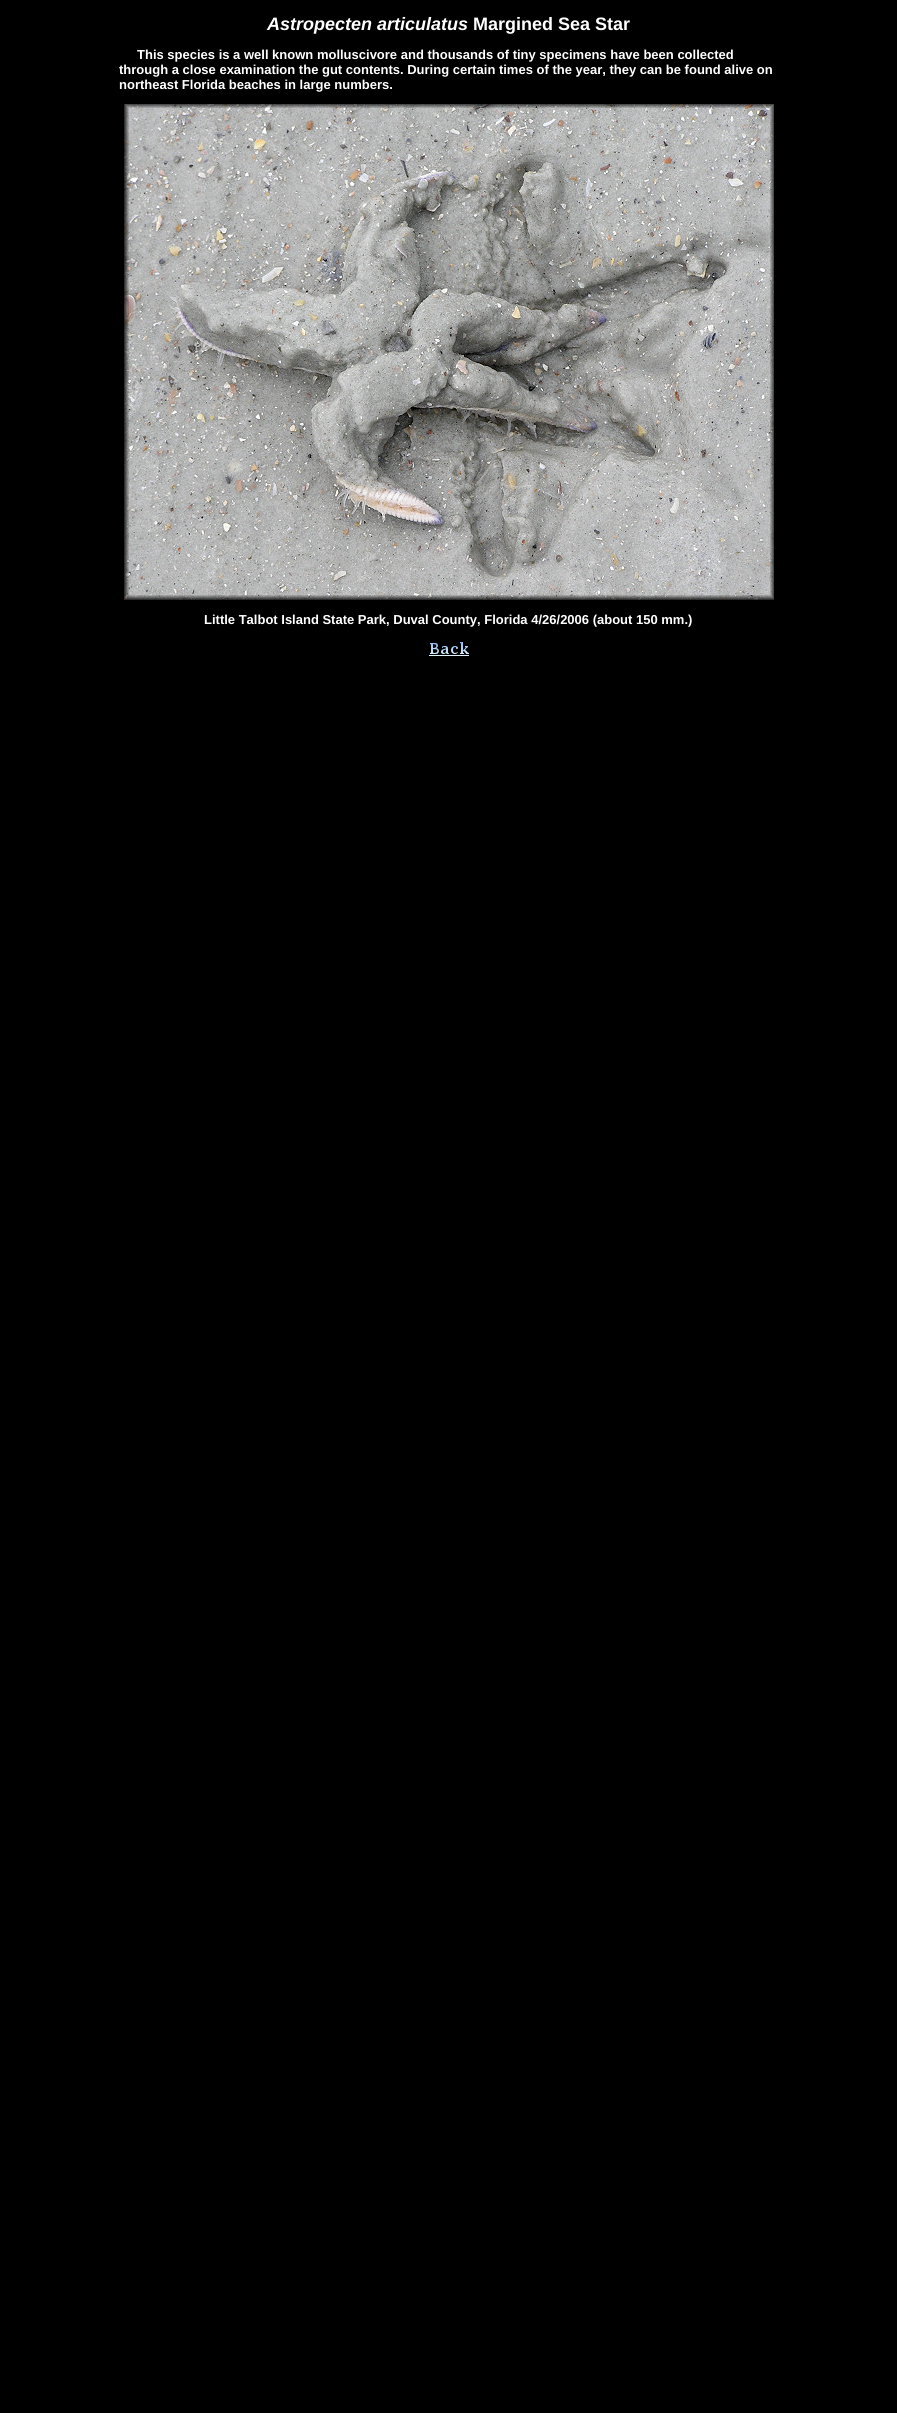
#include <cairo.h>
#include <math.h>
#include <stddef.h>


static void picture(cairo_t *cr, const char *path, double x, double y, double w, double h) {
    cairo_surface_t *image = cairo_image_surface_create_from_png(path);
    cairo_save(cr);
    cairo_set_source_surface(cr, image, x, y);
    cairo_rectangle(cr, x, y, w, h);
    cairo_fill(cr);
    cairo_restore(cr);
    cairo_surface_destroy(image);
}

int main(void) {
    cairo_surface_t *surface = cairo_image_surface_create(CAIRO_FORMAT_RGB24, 897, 2413);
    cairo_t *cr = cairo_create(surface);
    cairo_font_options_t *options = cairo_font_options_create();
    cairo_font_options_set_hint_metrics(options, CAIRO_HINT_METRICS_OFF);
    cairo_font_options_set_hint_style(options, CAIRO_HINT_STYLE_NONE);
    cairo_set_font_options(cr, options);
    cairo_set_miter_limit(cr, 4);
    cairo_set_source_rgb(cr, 0, 0, 0);
    cairo_paint(cr);
    cairo_select_font_face(cr, "Liberation Sans", CAIRO_FONT_SLANT_ITALIC, CAIRO_FONT_WEIGHT_BOLD);
    cairo_set_font_size(cr, 18);
    cairo_set_source_rgb(cr, 1, 1, 1);
    cairo_move_to(cr, 267, 30);
    cairo_show_text(cr, "Astropecten articulatus");
    cairo_select_font_face(cr, "Liberation Sans", CAIRO_FONT_SLANT_NORMAL, CAIRO_FONT_WEIGHT_BOLD);
    cairo_move_to(cr, 473, 30);
    cairo_show_text(cr, "Margined Sea Star");
    cairo_set_font_size(cr, 13);
    cairo_move_to(cr, 137, 59);
    cairo_show_text(cr, "This species is a well known molluscivore and thousands of tiny specimens have been collected");
    cairo_move_to(cr, 119, 74);
    cairo_show_text(cr, "through a close examination the gut contents. During certain times of the year, they can be found alive on");
    cairo_move_to(cr, 119, 89);
    cairo_show_text(cr, "northeast Florida beaches in large numbers.");
    picture(cr, "img1.png", 124, 104, 650, 496);
    cairo_move_to(cr, 204, 624);
    cairo_show_text(cr, "Little Talbot Island State Park, Duval County, Florida 4/26/2006 (about 150 mm.)");
    picture(cr, "img2.png", 429, 642, 40, 14);
    cairo_surface_write_to_png(surface, "page.png");
    cairo_font_options_destroy(options);
    cairo_destroy(cr);
    cairo_surface_destroy(surface);
    return 0;
}
